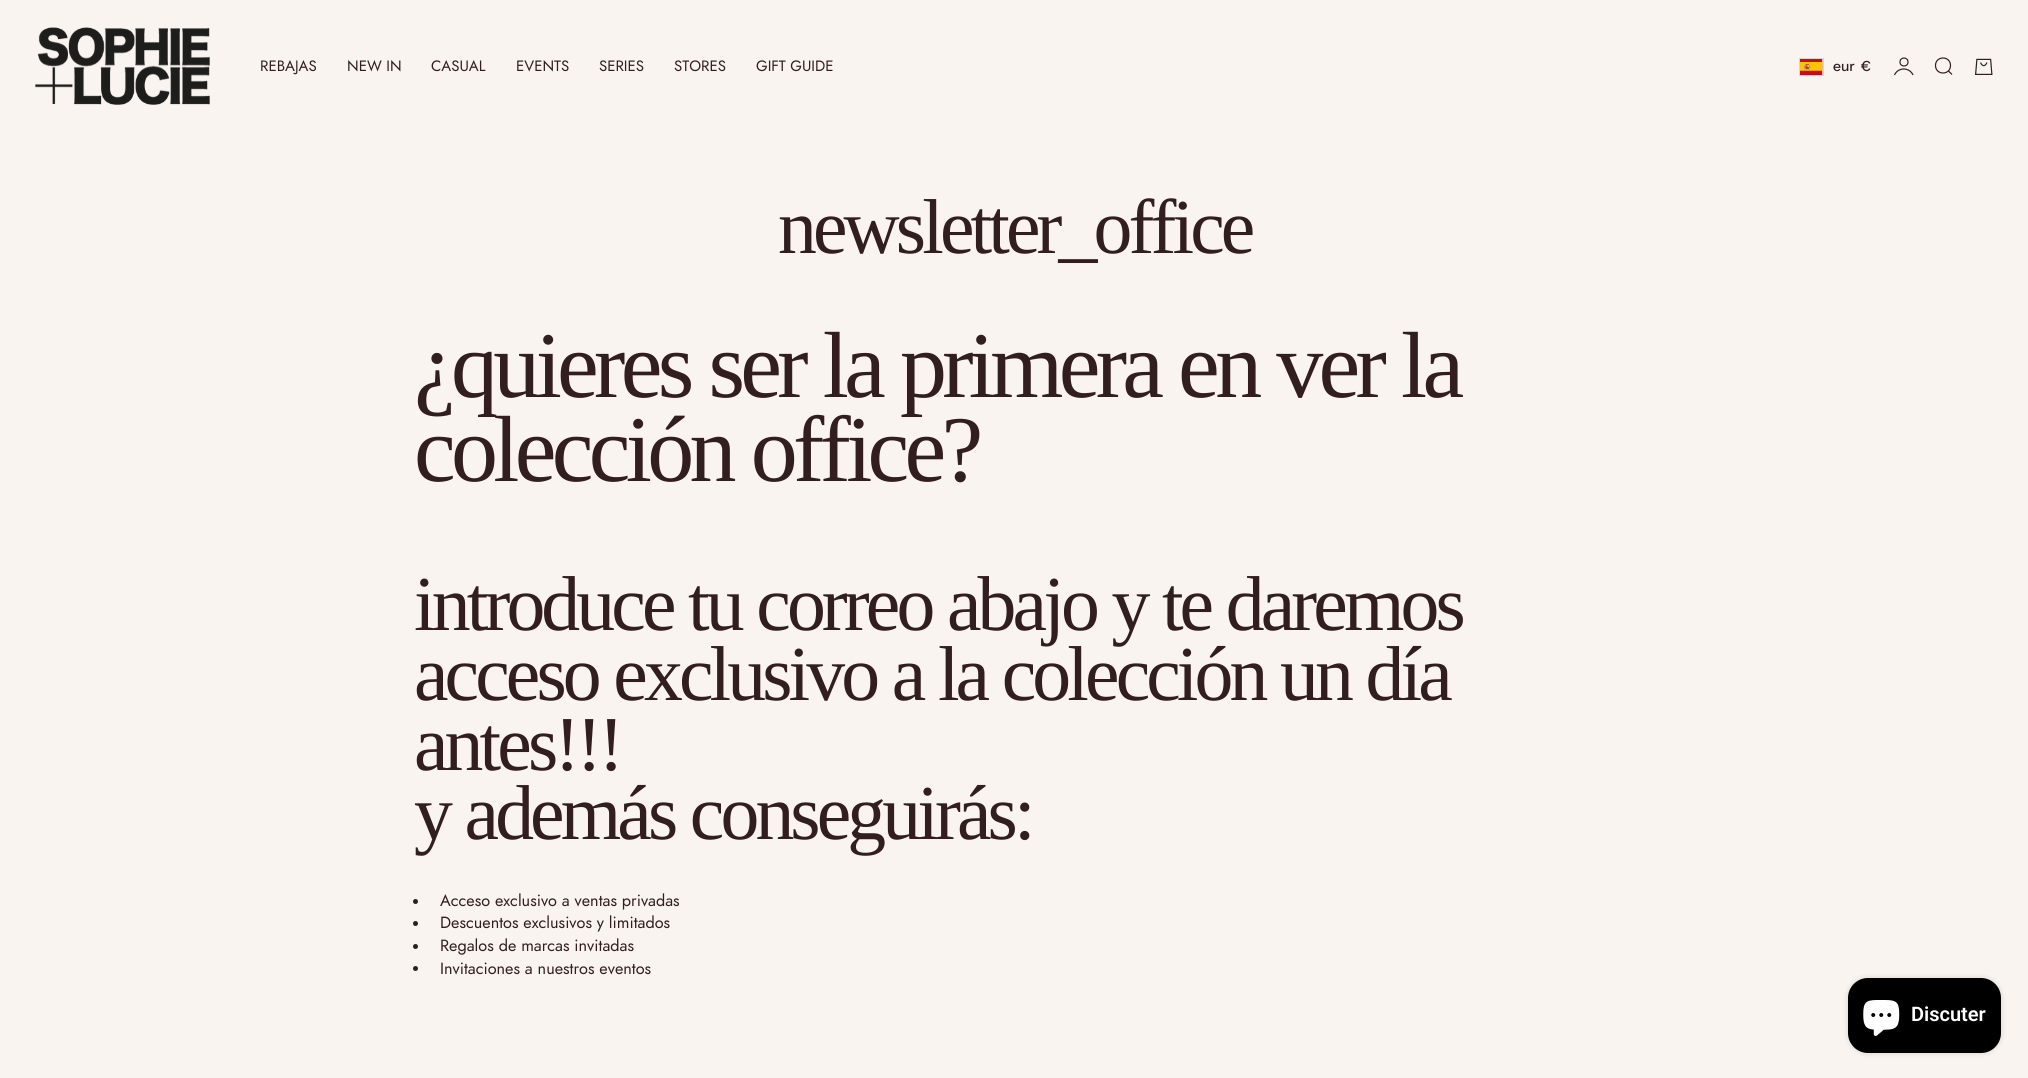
#include <cairo.h>
#include <math.h>
#include <stddef.h>


static void spaced_text(cairo_t *cr, double x, double y, const char *s, double letter, double word) {
    cairo_move_to(cr, x, y);
    while (*s) {
        char ch[5] = {0};
        int n = 0;
        do ch[n++] = *s++; while ((*s & 0xC0) == 0x80);
        cairo_show_text(cr, ch);
        cairo_rel_move_to(cr, letter + word * (*ch == ' '), 0);
    }
}

static void round_rect(cairo_t *cr, double x, double y, double w, double h, double r) {
    cairo_new_sub_path(cr);
    cairo_arc(cr, x + w - r, y + h - r, r, 0, M_PI / 2);
    cairo_arc(cr, x + r, y + h - r, r, M_PI / 2, M_PI);
    cairo_arc(cr, x + r, y + r, r, M_PI, 1.5 * M_PI);
    cairo_arc(cr, x + w - r, y + r, r, 1.5 * M_PI, 2 * M_PI);
    cairo_close_path(cr);
}

static void shadow(cairo_t *cr, double x, double y, double w, double h, double r, double blur, double alpha) {
    cairo_push_group_with_content(cr, CAIRO_CONTENT_ALPHA);
    cairo_set_operator(cr, CAIRO_OPERATOR_SOURCE);
    for (int i = 15; i >= -15 && fmin(w, h) + blur * i / 3 > 0; i -= 2) {
        double e = blur * i / 6;
        cairo_set_source_rgba(cr, 0, 0, 0, alpha * erfc((i - 1) / 8.5) / 2);
        round_rect(cr, x - e, y - e, w + 2 * e, h + 2 * e, fmax(0, fmin(r + e + blur * .6, fmin(w, h) / 2 + e)));
        cairo_fill(cr);
    }
    cairo_pattern_t *soft = cairo_pop_group(cr);
    cairo_mask(cr, soft);
    cairo_pattern_destroy(soft);
}

static void picture(cairo_t *cr, const char *path, double x, double y, double w, double h) {
    cairo_surface_t *image = cairo_image_surface_create_from_png(path);
    cairo_save(cr);
    cairo_set_source_surface(cr, image, x, y);
    cairo_rectangle(cr, x, y, w, h);
    cairo_fill(cr);
    cairo_restore(cr);
    cairo_surface_destroy(image);
}

int main(void) {
    cairo_surface_t *surface = cairo_image_surface_create(CAIRO_FORMAT_RGB24, 2028, 1078);
    cairo_t *cr = cairo_create(surface);
    cairo_font_options_t *options = cairo_font_options_create();
    cairo_font_options_set_hint_metrics(options, CAIRO_HINT_METRICS_OFF);
    cairo_font_options_set_hint_style(options, CAIRO_HINT_STYLE_NONE);
    cairo_set_font_options(cr, options);
    cairo_set_miter_limit(cr, 4);
    cairo_set_source_rgb(cr, 0.98, 0.957, 0.941);
    cairo_paint(cr);
    picture(cr, "img1.png", 35, 27, 175, 78);
    cairo_select_font_face(cr, "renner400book", CAIRO_FONT_SLANT_NORMAL, CAIRO_FONT_WEIGHT_NORMAL);
    cairo_set_font_size(cr, 15);
    cairo_set_source_rgb(cr, 0.196, 0.118, 0.118);
    cairo_move_to(cr, 260, 71);
    cairo_show_text(cr, "REBAJAS");
    cairo_move_to(cr, 347, 71);
    cairo_show_text(cr, "NEW IN");
    cairo_move_to(cr, 431, 71);
    cairo_show_text(cr, "CASUAL");
    cairo_move_to(cr, 516, 71);
    cairo_show_text(cr, "EVENTS");
    cairo_move_to(cr, 599, 71);
    cairo_show_text(cr, "SERIES");
    cairo_move_to(cr, 674, 71);
    cairo_show_text(cr, "STORES");
    cairo_move_to(cr, 756, 71);
    cairo_show_text(cr, "GIFT GUIDE");
    picture(cr, "img2.png", 1800, 59, 23, 16);
    cairo_rectangle(cr, 1799.5, 58.5, 24, 17);
    cairo_set_source_rgb(cr, 0.859, 0.831, 0.816);
    cairo_set_line_width(cr, 1);
    cairo_stroke(cr);
    cairo_select_font_face(cr, "Instrument Sans Medium", CAIRO_FONT_SLANT_NORMAL, CAIRO_FONT_WEIGHT_NORMAL);
    cairo_set_font_size(cr, 14);
    cairo_set_source_rgb(cr, 0.196, 0.118, 0.118);
    cairo_move_to(cr, 1833, 71);
    cairo_show_text(cr, "eur");
    cairo_move_to(cr, 1861, 71);
    cairo_show_text(cr, "€");
    cairo_new_path(cr);
    cairo_move_to(cr, 1913, 75);
    cairo_curve_to(cr, 1909.5, 67, 1898, 67, 1894.5, 75);
    cairo_set_line_width(cr, 1.2);
    cairo_stroke(cr);
    cairo_arc(cr, 1904, 62, 4, 0, 2 * M_PI);
    cairo_stroke(cr);
    cairo_new_path(cr);
    cairo_move_to(cr, 1935.5, 65.5);
    cairo_curve_to(cr, 1935.5, 75.5, 1950.5, 75.5, 1950.5, 65.5);
    cairo_curve_to(cr, 1950.5, 55.5, 1935.5, 55.5, 1935.5, 65.5);
    cairo_close_path(cr);
    cairo_move_to(cr, 1948, 70.5);
    cairo_line_to(cr, 1952, 74.5);
    cairo_stroke(cr);
    picture(cr, "img3.png", 1975, 58, 18, 17);
    cairo_select_font_face(cr, "Liberation Serif", CAIRO_FONT_SLANT_NORMAL, CAIRO_FONT_WEIGHT_NORMAL);
    cairo_set_font_size(cr, 77.75);
    spaced_text(cr, 778, 253, "newsletter_office", -3.9, 0);
    cairo_set_font_size(cr, 94);
    spaced_text(cr, 414, 397, "¿quieres ser la primera en ver la", -4.7, 0);
    spaced_text(cr, 414, 481, "colección office?", -4.7, 0);
    cairo_set_font_size(cr, 77.75);
    spaced_text(cr, 414, 630, "introduce tu correo abajo y te daremos", -3.9, 0);
    spaced_text(cr, 414, 700, "acceso exclusivo a la colección un día", -3.9, 0);
    spaced_text(cr, 414, 770, "antes!!!", -3.9, 0);
    spaced_text(cr, 414, 839, "y además conseguirás:", -3.9, 0);
    cairo_new_path(cr);
    cairo_arc(cr, 415.5, 901.5, 2.5, 0, 2 * M_PI);
    cairo_fill(cr);
    cairo_select_font_face(cr, "renner400book", CAIRO_FONT_SLANT_NORMAL, CAIRO_FONT_WEIGHT_NORMAL);
    cairo_set_font_size(cr, 16.25);
    cairo_move_to(cr, 440, 906);
    cairo_show_text(cr, "Acceso exclusivo a ventas privadas");
    cairo_new_path(cr);
    cairo_arc(cr, 415.5, 923.5, 2.5, 0, 2 * M_PI);
    cairo_fill(cr);
    cairo_move_to(cr, 440, 928);
    cairo_show_text(cr, "Descuentos exclusivos y limitados");
    cairo_new_path(cr);
    cairo_arc(cr, 415.5, 946.5, 2.5, 0, 2 * M_PI);
    cairo_fill(cr);
    cairo_move_to(cr, 440, 951);
    cairo_show_text(cr, "Regalos de marcas invitadas");
    cairo_new_path(cr);
    cairo_arc(cr, 415.5, 968.5, 2.5, 0, 2 * M_PI);
    cairo_fill(cr);
    cairo_move_to(cr, 440, 974);
    cairo_show_text(cr, "Invitaciones a nuestros eventos");
    cairo_set_source_rgb(cr, 0, 0, 0);
    shadow(cr, 1848, 978, 153, 75, 20, 3, 0.15);
    cairo_set_source_rgb(cr, 0, 0, 0);
    round_rect(cr, 1848, 978, 153, 75, 20);
    cairo_fill(cr);
    picture(cr, "img4.png", 1863, 1000, 37, 36);
    cairo_select_font_face(cr, "Roboto SemiBold", CAIRO_FONT_SLANT_NORMAL, CAIRO_FONT_WEIGHT_NORMAL);
    cairo_set_font_size(cr, 20);
    cairo_set_source_rgb(cr, 1, 1, 1);
    cairo_move_to(cr, 1911, 1021);
    cairo_show_text(cr, "Discuter");
    cairo_surface_write_to_png(surface, "page.png");
    cairo_font_options_destroy(options);
    cairo_destroy(cr);
    cairo_surface_destroy(surface);
    return 0;
}
